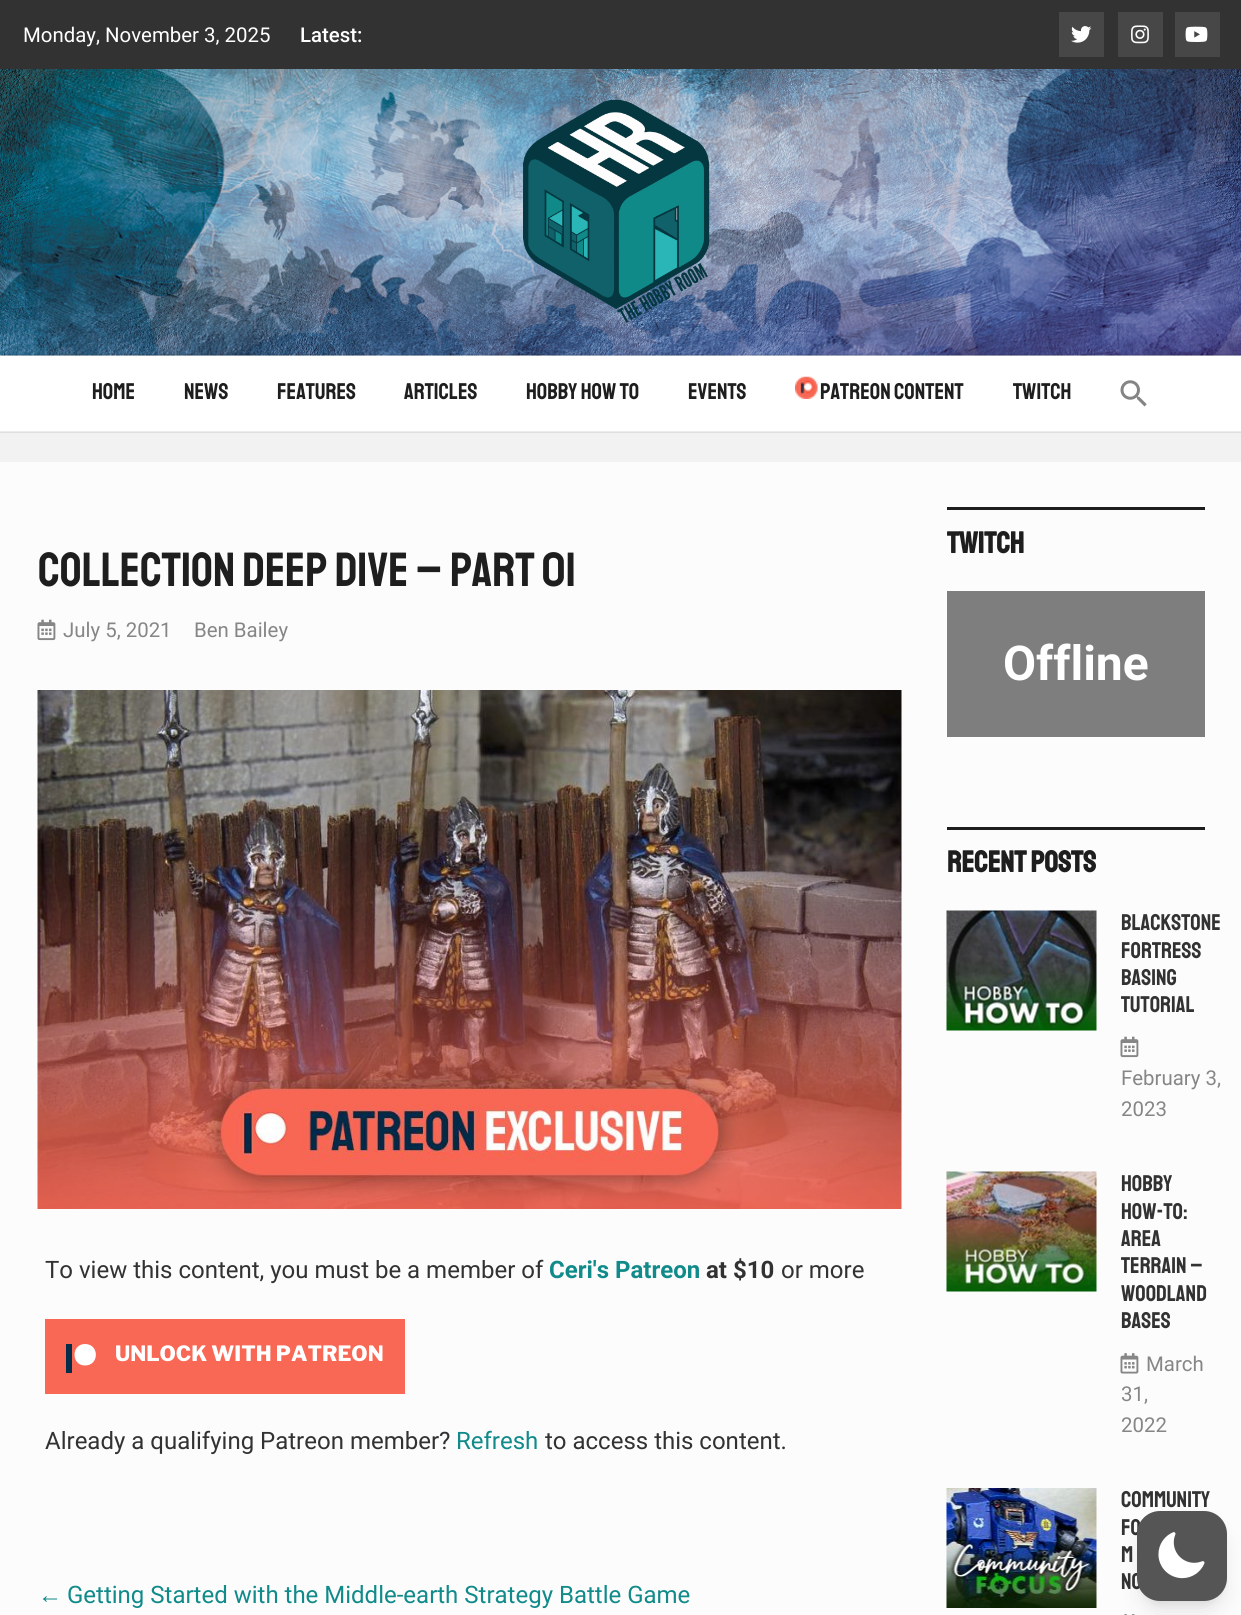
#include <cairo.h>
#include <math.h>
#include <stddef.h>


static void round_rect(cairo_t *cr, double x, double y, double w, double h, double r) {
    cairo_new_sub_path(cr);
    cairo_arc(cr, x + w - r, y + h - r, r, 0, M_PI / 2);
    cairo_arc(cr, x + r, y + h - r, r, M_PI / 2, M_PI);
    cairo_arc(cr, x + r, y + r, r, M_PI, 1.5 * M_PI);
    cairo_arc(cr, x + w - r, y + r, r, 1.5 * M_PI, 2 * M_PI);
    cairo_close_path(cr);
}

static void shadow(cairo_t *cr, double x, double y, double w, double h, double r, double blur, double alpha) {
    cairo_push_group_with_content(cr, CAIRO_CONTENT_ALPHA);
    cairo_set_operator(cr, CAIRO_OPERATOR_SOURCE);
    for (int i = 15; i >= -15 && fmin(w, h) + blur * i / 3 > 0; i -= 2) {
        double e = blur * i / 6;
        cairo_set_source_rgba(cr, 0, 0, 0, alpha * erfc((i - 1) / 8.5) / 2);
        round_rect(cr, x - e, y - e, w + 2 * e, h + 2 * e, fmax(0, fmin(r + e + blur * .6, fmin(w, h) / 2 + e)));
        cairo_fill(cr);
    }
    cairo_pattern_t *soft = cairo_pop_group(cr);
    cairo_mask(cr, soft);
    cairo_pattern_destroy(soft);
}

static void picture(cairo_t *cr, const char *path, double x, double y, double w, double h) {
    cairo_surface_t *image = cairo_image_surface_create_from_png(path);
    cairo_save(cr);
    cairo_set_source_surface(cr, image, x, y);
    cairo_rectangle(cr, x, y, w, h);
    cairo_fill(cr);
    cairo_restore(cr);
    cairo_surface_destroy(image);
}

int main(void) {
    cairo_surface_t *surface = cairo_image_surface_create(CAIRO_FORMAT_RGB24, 1241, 1615);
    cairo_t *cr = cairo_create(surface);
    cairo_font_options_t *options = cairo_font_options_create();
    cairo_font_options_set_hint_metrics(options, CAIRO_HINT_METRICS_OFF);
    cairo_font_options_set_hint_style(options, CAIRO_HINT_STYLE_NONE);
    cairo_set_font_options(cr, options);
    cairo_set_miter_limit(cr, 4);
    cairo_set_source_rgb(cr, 1, 1, 1);
    cairo_paint(cr);
    cairo_set_source_rgb(cr, 0.922, 0.922, 0.922);
    cairo_rectangle(cr, 0, 431, 1241, 1);
    cairo_fill(cr);
    cairo_set_source_rgb(cr, 0.196, 0.196, 0.196);
    cairo_rectangle(cr, 0, 0, 1241, 69);
    cairo_fill(cr);
    cairo_select_font_face(cr, "Roboto", CAIRO_FONT_SLANT_NORMAL, CAIRO_FONT_WEIGHT_NORMAL);
    cairo_set_font_size(cr, 20.4);
    cairo_set_source_rgb(cr, 1, 1, 1);
    cairo_move_to(cr, 23, 42);
    cairo_show_text(cr, "Monday, November 3, 2025");
    cairo_select_font_face(cr, "Roboto Medium", CAIRO_FONT_SLANT_NORMAL, CAIRO_FONT_WEIGHT_NORMAL);
    cairo_move_to(cr, 300, 42);
    cairo_show_text(cr, "Latest:");
    cairo_set_source_rgb(cr, 0.278, 0.278, 0.278);
    cairo_rectangle(cr, 1059, 12, 45, 45);
    cairo_fill(cr);
    picture(cr, "img1.png", 1071, 26, 21, 17);
    cairo_rectangle(cr, 1118, 12, 45, 45);
    cairo_fill(cr);
    picture(cr, "img2.png", 1131, 25, 18, 19);
    cairo_rectangle(cr, 1175, 12, 45, 45);
    cairo_fill(cr);
    picture(cr, "img3.png", 1185, 26, 23, 16);
    picture(cr, "img4.png", 0, 69, 1241, 287);
    cairo_set_source_rgba(cr, 0, 0, 0, 0.08);
    cairo_rectangle(cr, 0, 354, 1241, 2);
    cairo_fill(cr);
    picture(cr, "img5.png", 523, 99, 187, 224);
    cairo_select_font_face(cr, "Staatliches", CAIRO_FONT_SLANT_NORMAL, CAIRO_FONT_WEIGHT_NORMAL);
    cairo_set_font_size(cr, 22.75);
    cairo_set_source_rgb(cr, 0.118, 0.118, 0.118);
    cairo_move_to(cr, 92, 399);
    cairo_show_text(cr, "Home");
    cairo_move_to(cr, 184, 399);
    cairo_show_text(cr, "News");
    cairo_move_to(cr, 277, 399);
    cairo_show_text(cr, "Features");
    cairo_move_to(cr, 404, 399);
    cairo_show_text(cr, "Articles");
    cairo_move_to(cr, 526, 399);
    cairo_show_text(cr, "Hobby How To");
    cairo_move_to(cr, 688, 399);
    cairo_show_text(cr, "EVENTS");
    picture(cr, "img6.png", 795, 376, 23, 23);
    cairo_move_to(cr, 820, 399);
    cairo_show_text(cr, "Patreon Content");
    cairo_move_to(cr, 1013, 399);
    cairo_show_text(cr, "Twitch");
    picture(cr, "img7.png", 1120, 380, 27, 27);
    cairo_set_source_rgb(cr, 0.949, 0.949, 0.949);
    cairo_rectangle(cr, 0, 433, 1241, 29);
    cairo_fill(cr);
    cairo_set_source_rgb(cr, 0.875, 0.875, 0.875);
    cairo_rectangle(cr, 0, 432, 1241, 1);
    cairo_fill(cr);
    cairo_set_source_rgb(cr, 0.988, 0.988, 0.988);
    cairo_rectangle(cr, 0, 462, 1241, 1153);
    cairo_fill(cr);
    cairo_set_font_size(cr, 48);
    cairo_set_source_rgb(cr, 0.118, 0.118, 0.118);
    cairo_move_to(cr, 38, 586);
    cairo_show_text(cr, "Collection Deep Dive – Part 01");
    picture(cr, "img8.png", 37, 619, 19, 22);
    cairo_select_font_face(cr, "Roboto", CAIRO_FONT_SLANT_NORMAL, CAIRO_FONT_WEIGHT_NORMAL);
    cairo_set_font_size(cr, 20.4);
    cairo_set_source_rgb(cr, 0.525, 0.525, 0.525);
    cairo_move_to(cr, 63, 637);
    cairo_show_text(cr, "July 5, 2021");
    cairo_move_to(cr, 194, 637);
    cairo_show_text(cr, "Ben Bailey");
    picture(cr, "img9.png", 37, 690, 865, 519);
    cairo_set_font_size(cr, 24);
    cairo_set_source_rgb(cr, 0.196, 0.196, 0.196);
    cairo_move_to(cr, 45, 1278);
    cairo_show_text(cr, "To view this content, you must be a member of");
    cairo_select_font_face(cr, "Roboto", CAIRO_FONT_SLANT_NORMAL, CAIRO_FONT_WEIGHT_BOLD);
    cairo_set_source_rgb(cr, 0.067, 0.541, 0.541);
    cairo_move_to(cr, 549, 1278);
    cairo_show_text(cr, "Ceri's Patreon");
    cairo_set_source_rgb(cr, 0.196, 0.196, 0.196);
    cairo_move_to(cr, 706, 1278);
    cairo_show_text(cr, "at $10");
    cairo_select_font_face(cr, "Roboto", CAIRO_FONT_SLANT_NORMAL, CAIRO_FONT_WEIGHT_NORMAL);
    cairo_move_to(cr, 781, 1278);
    cairo_show_text(cr, "or more");
    cairo_set_source_rgb(cr, 0.976, 0.408, 0.329);
    cairo_rectangle(cr, 45, 1319, 360, 75);
    cairo_fill(cr);
    cairo_set_source_rgb(cr, 1, 1, 1);
    cairo_set_fill_rule(cr, CAIRO_FILL_RULE_EVEN_ODD);
    cairo_new_path(cr);
    cairo_move_to(cr, 85, 1344);
    cairo_curve_to(cr, 71, 1344, 71, 1365.5, 85, 1365.5);
    cairo_curve_to(cr, 99.5, 1365.5, 99.5, 1344, 85, 1344);
    cairo_fill(cr);
    cairo_set_source_rgb(cr, 0.02, 0.176, 0.286);
    cairo_rectangle(cr, 66, 1344, 6, 29);
    cairo_fill(cr);
    cairo_select_font_face(cr, "Libre Franklin ExtraBold", CAIRO_FONT_SLANT_NORMAL, CAIRO_FONT_WEIGHT_NORMAL);
    cairo_set_font_size(cr, 21);
    cairo_set_source_rgb(cr, 1, 1, 1);
    cairo_move_to(cr, 115, 1361);
    cairo_show_text(cr, "UNLOCK WITH PATREON");
    cairo_select_font_face(cr, "Roboto", CAIRO_FONT_SLANT_NORMAL, CAIRO_FONT_WEIGHT_NORMAL);
    cairo_set_font_size(cr, 24);
    cairo_set_source_rgb(cr, 0.196, 0.196, 0.196);
    cairo_move_to(cr, 45, 1449);
    cairo_show_text(cr, "Already a qualifying Patreon member?");
    cairo_set_source_rgb(cr, 0.067, 0.541, 0.541);
    cairo_move_to(cr, 456, 1449);
    cairo_show_text(cr, "Refresh");
    cairo_set_source_rgb(cr, 0.196, 0.196, 0.196);
    cairo_move_to(cr, 545, 1449);
    cairo_show_text(cr, "to access this content.");
    cairo_select_font_face(cr, "Liberation Sans", CAIRO_FONT_SLANT_NORMAL, CAIRO_FONT_WEIGHT_NORMAL);
    cairo_set_source_rgb(cr, 0.067, 0.541, 0.541);
    cairo_move_to(cr, 38, 1603);
    cairo_show_text(cr, "←");
    cairo_select_font_face(cr, "Roboto", CAIRO_FONT_SLANT_NORMAL, CAIRO_FONT_WEIGHT_NORMAL);
    cairo_move_to(cr, 67, 1603);
    cairo_show_text(cr, "Getting Started with the Middle-earth Strategy Battle Game");
    cairo_set_source_rgb(cr, 0.118, 0.118, 0.118);
    cairo_rectangle(cr, 947, 507, 258, 3);
    cairo_fill(cr);
    cairo_select_font_face(cr, "Staatliches", CAIRO_FONT_SLANT_NORMAL, CAIRO_FONT_WEIGHT_BOLD);
    cairo_set_font_size(cr, 30);
    cairo_move_to(cr, 947, 553);
    cairo_show_text(cr, "Twitch");
    cairo_set_source_rgb(cr, 0.494, 0.494, 0.494);
    cairo_rectangle(cr, 947, 591, 258, 146);
    cairo_fill(cr);
    cairo_select_font_face(cr, "Roboto", CAIRO_FONT_SLANT_NORMAL, CAIRO_FONT_WEIGHT_BOLD);
    cairo_set_font_size(cr, 48);
    cairo_set_source_rgb(cr, 1, 1, 1);
    cairo_move_to(cr, 1003, 680);
    cairo_show_text(cr, "Offline");
    cairo_set_source_rgb(cr, 0.118, 0.118, 0.118);
    cairo_rectangle(cr, 947, 827, 258, 3);
    cairo_fill(cr);
    cairo_select_font_face(cr, "Staatliches", CAIRO_FONT_SLANT_NORMAL, CAIRO_FONT_WEIGHT_BOLD);
    cairo_set_font_size(cr, 30);
    cairo_move_to(cr, 947, 872);
    cairo_show_text(cr, "Recent Posts");
    picture(cr, "img10.png", 946, 910, 151, 121);
    cairo_select_font_face(cr, "Staatliches", CAIRO_FONT_SLANT_NORMAL, CAIRO_FONT_WEIGHT_NORMAL);
    cairo_set_font_size(cr, 22.75);
    cairo_set_source_rgb(cr, 0.196, 0.196, 0.196);
    cairo_move_to(cr, 1121, 930);
    cairo_show_text(cr, "Blackstone");
    cairo_move_to(cr, 1121, 958);
    cairo_show_text(cr, "Fortress");
    cairo_move_to(cr, 1121, 985);
    cairo_show_text(cr, "Basing");
    cairo_move_to(cr, 1121, 1012);
    cairo_show_text(cr, "tutorial");
    picture(cr, "img8.png", 1120, 1036, 19, 22);
    cairo_select_font_face(cr, "Roboto", CAIRO_FONT_SLANT_NORMAL, CAIRO_FONT_WEIGHT_NORMAL);
    cairo_set_font_size(cr, 20.4);
    cairo_set_source_rgb(cr, 0.525, 0.525, 0.525);
    cairo_move_to(cr, 1121, 1085);
    cairo_show_text(cr, "February 3,");
    cairo_move_to(cr, 1121, 1116);
    cairo_show_text(cr, "2023");
    picture(cr, "img11.png", 946, 1171, 151, 121);
    cairo_select_font_face(cr, "Staatliches", CAIRO_FONT_SLANT_NORMAL, CAIRO_FONT_WEIGHT_NORMAL);
    cairo_set_font_size(cr, 22.75);
    cairo_set_source_rgb(cr, 0.196, 0.196, 0.196);
    cairo_move_to(cr, 1121, 1191);
    cairo_show_text(cr, "Hobby");
    cairo_move_to(cr, 1121, 1219);
    cairo_show_text(cr, "How-to:");
    cairo_move_to(cr, 1121, 1246);
    cairo_show_text(cr, "Area");
    cairo_move_to(cr, 1121, 1273);
    cairo_show_text(cr, "Terrain –");
    cairo_move_to(cr, 1121, 1301);
    cairo_show_text(cr, "Woodland");
    cairo_move_to(cr, 1121, 1328);
    cairo_show_text(cr, "Bases");
    picture(cr, "img12.png", 1120, 1353, 19, 21);
    cairo_select_font_face(cr, "Roboto", CAIRO_FONT_SLANT_NORMAL, CAIRO_FONT_WEIGHT_NORMAL);
    cairo_set_font_size(cr, 20.4);
    cairo_set_source_rgb(cr, 0.525, 0.525, 0.525);
    cairo_move_to(cr, 1146, 1371);
    cairo_show_text(cr, "March");
    cairo_move_to(cr, 1121, 1401);
    cairo_show_text(cr, "31,");
    cairo_move_to(cr, 1121, 1432);
    cairo_show_text(cr, "2022");
    picture(cr, "img13.png", 946, 1488, 151, 120);
    cairo_select_font_face(cr, "Staatliches", CAIRO_FONT_SLANT_NORMAL, CAIRO_FONT_WEIGHT_NORMAL);
    cairo_set_font_size(cr, 22.75);
    cairo_set_source_rgb(cr, 0.196, 0.196, 0.196);
    cairo_move_to(cr, 1121, 1507);
    cairo_show_text(cr, "Community");
    cairo_move_to(cr, 1121, 1535);
    cairo_show_text(cr, "Fo");
    cairo_move_to(cr, 1121, 1562);
    cairo_show_text(cr, "M");
    cairo_move_to(cr, 1121, 1589);
    cairo_show_text(cr, "No");
    picture(cr, "img14.png", 1124, 1614, 11, 1);
    cairo_set_source_rgb(cr, 0, 0, 0);
    shadow(cr, 1143, 1523, 78, 78, 17, 4.5, 0.1);
    shadow(cr, 1142, 1530, 81, 81, 18, 11, 0.1);
    cairo_set_source_rgb(cr, 0.333, 0.333, 0.333);
    round_rect(cr, 1137, 1511, 90, 90, 23);
    cairo_fill(cr);
    picture(cr, "img15.png", 1158, 1532, 47, 47);
    cairo_surface_write_to_png(surface, "page.png");
    cairo_font_options_destroy(options);
    cairo_destroy(cr);
    cairo_surface_destroy(surface);
    return 0;
}
